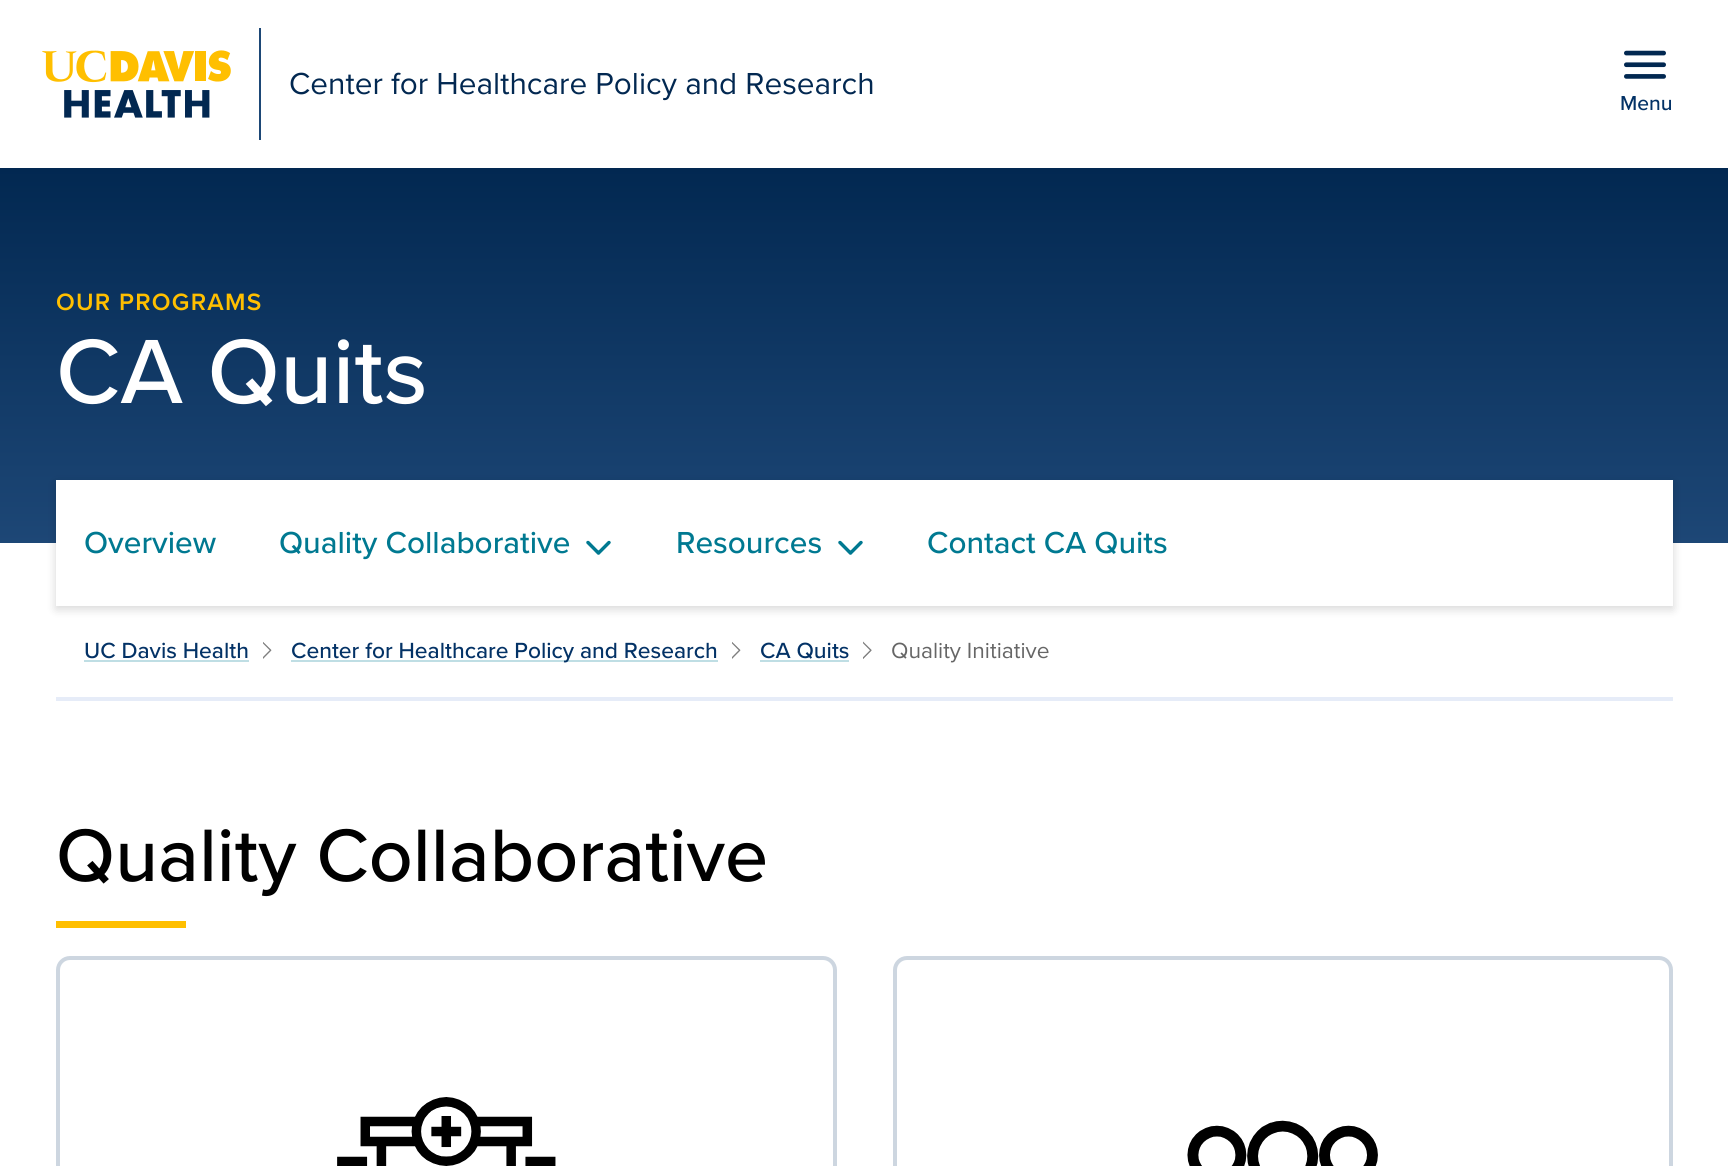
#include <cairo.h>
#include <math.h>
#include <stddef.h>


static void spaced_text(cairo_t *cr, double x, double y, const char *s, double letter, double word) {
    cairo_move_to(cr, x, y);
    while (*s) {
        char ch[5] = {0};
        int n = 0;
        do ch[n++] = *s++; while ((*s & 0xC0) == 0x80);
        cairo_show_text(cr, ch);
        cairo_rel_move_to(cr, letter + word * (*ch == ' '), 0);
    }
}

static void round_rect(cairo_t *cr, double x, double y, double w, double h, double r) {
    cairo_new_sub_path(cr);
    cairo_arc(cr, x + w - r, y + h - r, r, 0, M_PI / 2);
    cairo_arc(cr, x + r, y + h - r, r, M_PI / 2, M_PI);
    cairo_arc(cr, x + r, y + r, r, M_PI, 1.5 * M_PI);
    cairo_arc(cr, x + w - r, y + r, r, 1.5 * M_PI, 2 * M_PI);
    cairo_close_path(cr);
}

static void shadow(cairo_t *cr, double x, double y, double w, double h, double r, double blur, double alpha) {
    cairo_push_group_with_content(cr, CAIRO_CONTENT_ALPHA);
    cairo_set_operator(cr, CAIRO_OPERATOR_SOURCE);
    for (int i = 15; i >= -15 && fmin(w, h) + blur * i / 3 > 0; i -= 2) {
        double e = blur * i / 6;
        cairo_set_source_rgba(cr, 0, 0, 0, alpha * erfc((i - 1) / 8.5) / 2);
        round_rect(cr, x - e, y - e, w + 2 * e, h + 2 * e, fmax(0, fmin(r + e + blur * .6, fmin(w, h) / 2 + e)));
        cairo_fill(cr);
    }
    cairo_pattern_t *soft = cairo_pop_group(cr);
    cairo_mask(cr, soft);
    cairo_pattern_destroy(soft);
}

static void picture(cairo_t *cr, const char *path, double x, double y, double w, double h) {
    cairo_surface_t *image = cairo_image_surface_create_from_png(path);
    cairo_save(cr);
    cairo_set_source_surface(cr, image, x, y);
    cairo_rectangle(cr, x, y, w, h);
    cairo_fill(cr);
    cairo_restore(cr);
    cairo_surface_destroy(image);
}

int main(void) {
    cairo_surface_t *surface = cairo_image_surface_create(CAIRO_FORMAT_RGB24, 1728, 1166);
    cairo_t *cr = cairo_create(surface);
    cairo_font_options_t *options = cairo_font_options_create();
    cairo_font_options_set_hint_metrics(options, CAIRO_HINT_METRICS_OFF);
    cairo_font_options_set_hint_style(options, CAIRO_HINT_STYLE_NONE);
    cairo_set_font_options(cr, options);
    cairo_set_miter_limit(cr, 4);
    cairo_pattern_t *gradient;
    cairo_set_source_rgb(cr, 1, 1, 1);
    cairo_paint(cr);
    picture(cr, "img1.png", 42, 50, 189, 68);
    cairo_set_source_rgb(cr, 0.114, 0.278, 0.463);
    cairo_rectangle(cr, 259, 28, 2, 112);
    cairo_fill(cr);
    cairo_select_font_face(cr, "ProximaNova", CAIRO_FONT_SLANT_NORMAL, CAIRO_FONT_WEIGHT_NORMAL);
    cairo_set_font_size(cr, 31.5);
    cairo_set_source_rgb(cr, 0.008, 0.157, 0.318);
    cairo_move_to(cr, 289, 94);
    cairo_show_text(cr, "Center for Healthcare Policy and Research");
    picture(cr, "img2.png", 1624, 50, 42, 29);
    cairo_select_font_face(cr, "Proxima Nova Medium", CAIRO_FONT_SLANT_NORMAL, CAIRO_FONT_WEIGHT_NORMAL);
    cairo_set_font_size(cr, 21);
    cairo_set_source_rgb(cr, 0.012, 0.196, 0.4);
    cairo_move_to(cr, 1620, 110);
    cairo_show_text(cr, "Menu");
    gradient = cairo_pattern_create_linear(865, 168, 865, 543);
    cairo_pattern_add_color_stop_rgba(gradient, 0, 0.008, 0.157, 0.318, 1);
    cairo_pattern_add_color_stop_rgba(gradient, 1, 0.114, 0.278, 0.463, 1);
    cairo_set_source(cr, gradient);
    cairo_pattern_destroy(gradient);
    cairo_rectangle(cr, 0, 168, 1728, 375);
    cairo_fill(cr);
    cairo_select_font_face(cr, "Proxima Nova SemiBold", CAIRO_FONT_SLANT_NORMAL, CAIRO_FONT_WEIGHT_NORMAL);
    cairo_set_font_size(cr, 24.5);
    cairo_set_source_rgb(cr, 1, 0.749, 0);
    spaced_text(cr, 56, 310, "OUR PROGRAMS", 1.25, 0);
    cairo_select_font_face(cr, "Proxima Nova Medium", CAIRO_FONT_SLANT_NORMAL, CAIRO_FONT_WEIGHT_NORMAL);
    cairo_set_font_size(cr, 94.5);
    cairo_set_source_rgb(cr, 1, 1, 1);
    cairo_move_to(cr, 56, 403);
    cairo_show_text(cr, "CA Quits");
    cairo_set_source_rgb(cr, 0, 0, 0);
    shadow(cr, 56, 483, 1617, 126, 0, 5, 0.16);
    cairo_set_source_rgb(cr, 1, 1, 1);
    cairo_rectangle(cr, 56, 480, 1617, 126);
    cairo_fill(cr);
    cairo_set_font_size(cr, 31.5);
    cairo_set_source_rgb(cr, 0, 0.475, 0.569);
    cairo_move_to(cr, 84, 553);
    cairo_show_text(cr, "Overview");
    cairo_move_to(cr, 279, 553);
    cairo_show_text(cr, "Quality Collaborative");
    picture(cr, "img3.png", 586, 540, 25, 15);
    cairo_move_to(cr, 676, 553);
    cairo_show_text(cr, "Resources");
    picture(cr, "img3.png", 838, 540, 25, 15);
    cairo_move_to(cr, 927, 553);
    cairo_show_text(cr, "Contact CA Quits");
    cairo_set_source_rgb(cr, 0.902, 0.925, 0.969);
    cairo_rectangle(cr, 56, 697, 1617, 4);
    cairo_fill(cr);
    cairo_set_font_size(cr, 22.75);
    cairo_set_source_rgb(cr, 0.012, 0.196, 0.4);
    cairo_move_to(cr, 84, 658);
    cairo_show_text(cr, "UC Davis Health");
    cairo_set_source_rgb(cr, 0.749, 0.871, 0.894);
    cairo_rectangle(cr, 84, 660, 165, 2);
    cairo_fill(cr);
    picture(cr, "img4.png", 263, 642, 9, 17);
    cairo_rectangle(cr, 291, 660, 427, 2);
    cairo_fill(cr);
    cairo_set_source_rgb(cr, 0.012, 0.196, 0.4);
    cairo_move_to(cr, 291, 658);
    cairo_show_text(cr, "Center for Healthcare Policy and Research");
    picture(cr, "img4.png", 732, 642, 9, 17);
    cairo_move_to(cr, 760, 658);
    cairo_show_text(cr, "CA Quits");
    cairo_set_source_rgb(cr, 0.749, 0.871, 0.894);
    cairo_rectangle(cr, 760, 660, 89, 2);
    cairo_fill(cr);
    picture(cr, "img5.png", 863, 641, 9, 18);
    cairo_select_font_face(cr, "ProximaNova", CAIRO_FONT_SLANT_NORMAL, CAIRO_FONT_WEIGHT_NORMAL);
    cairo_set_source_rgb(cr, 0.4, 0.4, 0.4);
    cairo_move_to(cr, 891, 658);
    cairo_show_text(cr, "Quality Initiative");
    cairo_select_font_face(cr, "Proxima Nova Medium", CAIRO_FONT_SLANT_NORMAL, CAIRO_FONT_WEIGHT_NORMAL);
    cairo_set_font_size(cr, 77);
    cairo_set_source_rgb(cr, 0, 0, 0);
    cairo_move_to(cr, 56, 881);
    cairo_show_text(cr, "Quality Collaborative");
    cairo_set_source_rgb(cr, 1, 0.749, 0);
    cairo_rectangle(cr, 56, 921, 130, 7);
    cairo_fill(cr);
    round_rect(cr, 58, 958, 777, 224, 12);
    cairo_set_source_rgb(cr, 0.804, 0.839, 0.878);
    cairo_set_line_width(cr, 4);
    cairo_stroke(cr);
    picture(cr, "img6.png", 337, 1097, 219, 69);
    round_rect(cr, 895, 958, 776, 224, 12);
    cairo_stroke(cr);
    picture(cr, "img7.png", 1187, 1120, 191, 46);
    cairo_surface_write_to_png(surface, "page.png");
    cairo_font_options_destroy(options);
    cairo_destroy(cr);
    cairo_surface_destroy(surface);
    return 0;
}
